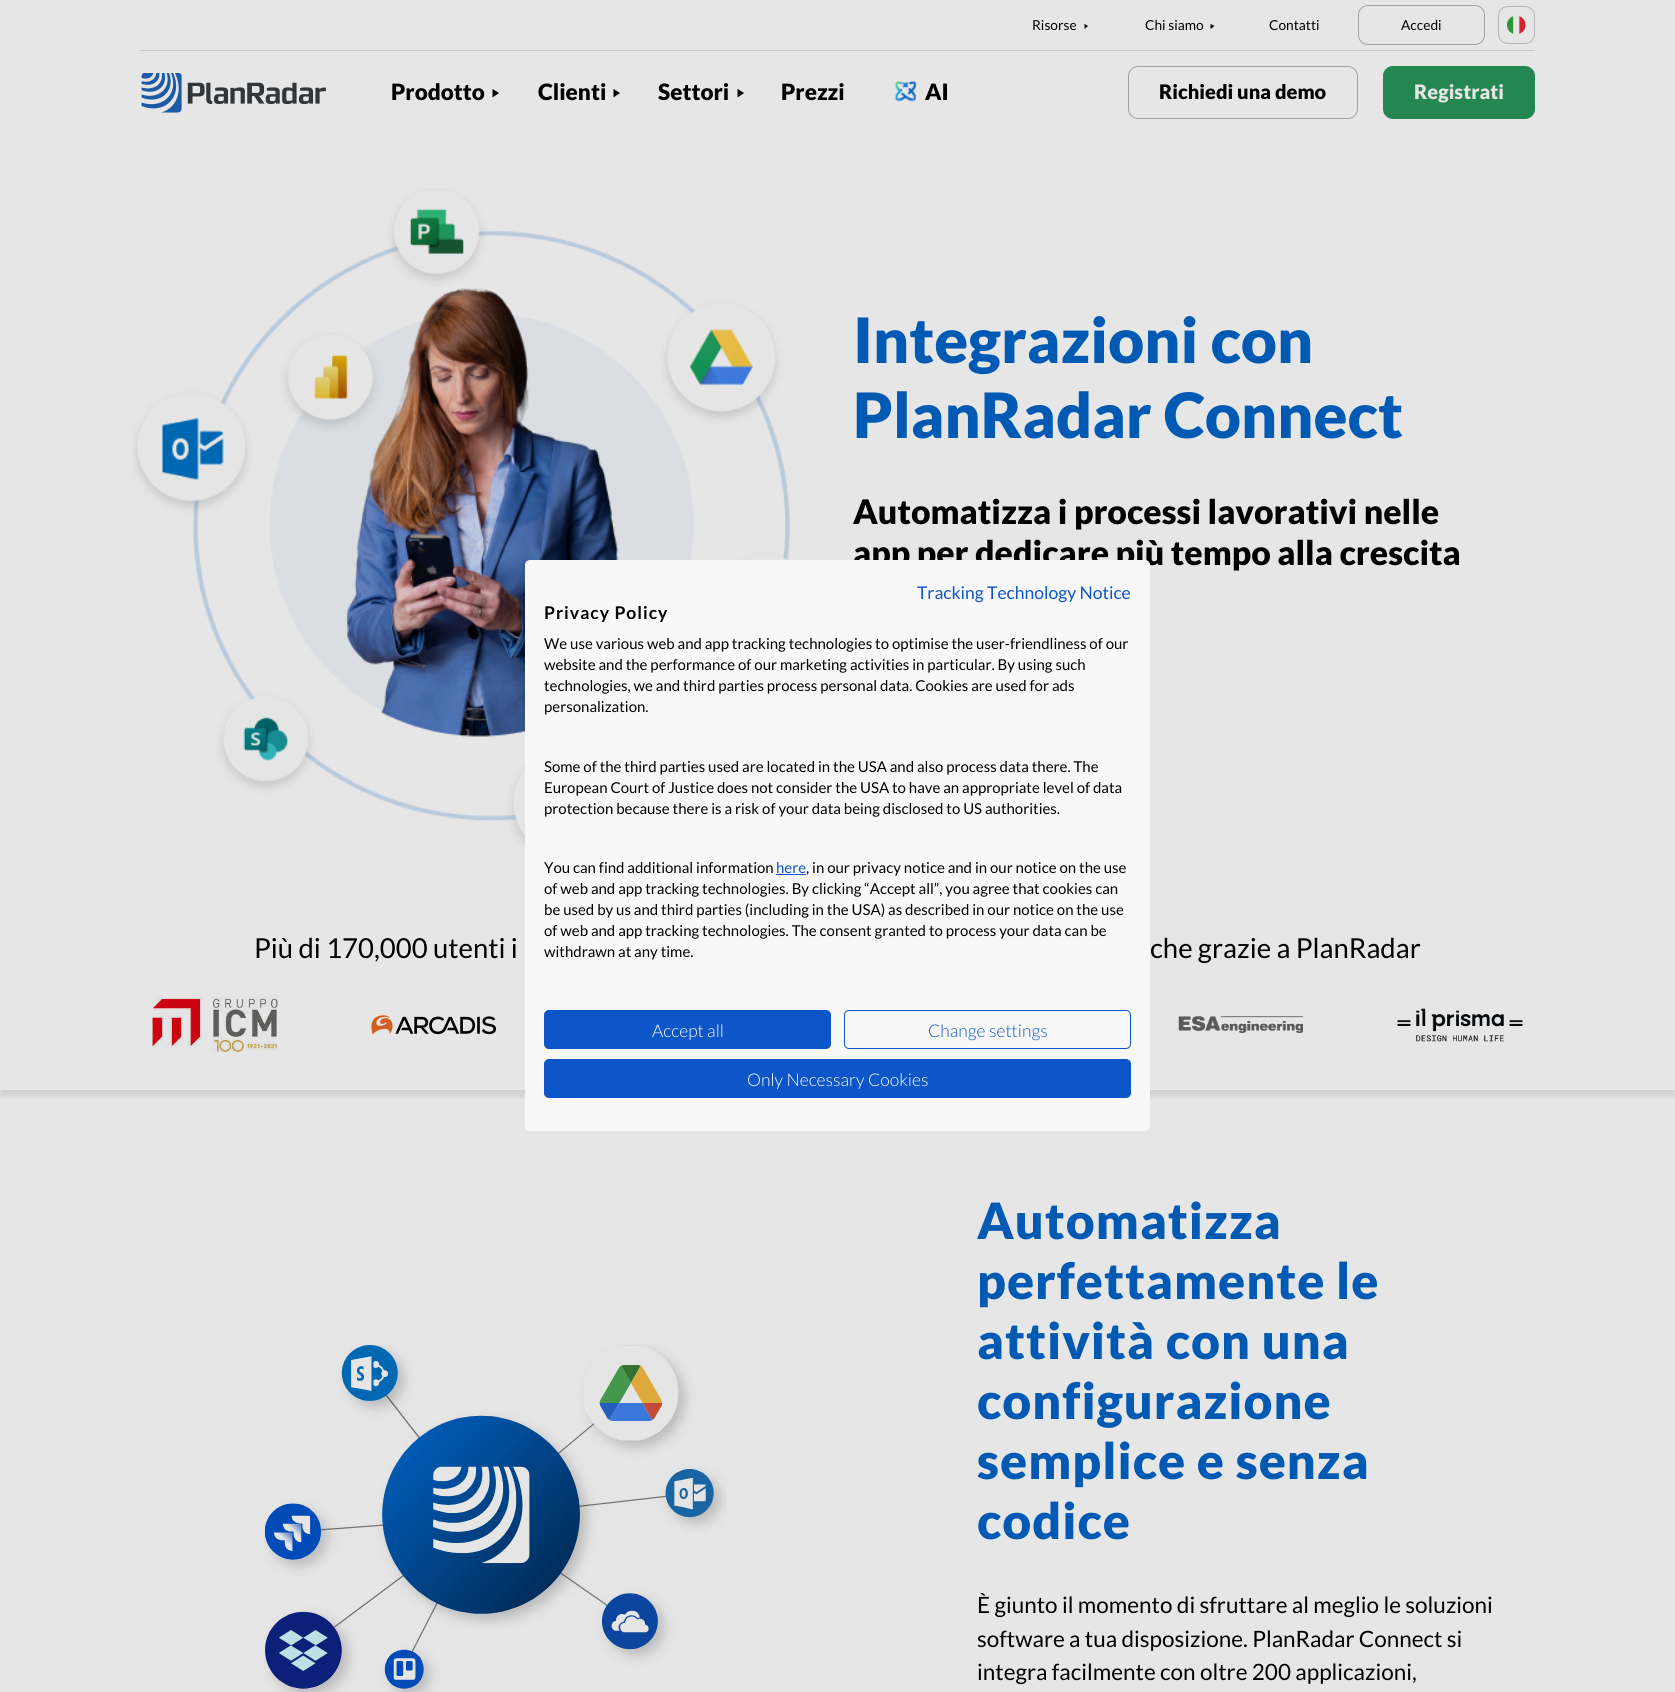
#include <cairo.h>
#include <math.h>
#include <stddef.h>


static void spaced_text(cairo_t *cr, double x, double y, const char *s, double letter, double word) {
    cairo_move_to(cr, x, y);
    while (*s) {
        char ch[5] = {0};
        int n = 0;
        do ch[n++] = *s++; while ((*s & 0xC0) == 0x80);
        cairo_show_text(cr, ch);
        cairo_rel_move_to(cr, letter + word * (*ch == ' '), 0);
    }
}

static void round_rect(cairo_t *cr, double x, double y, double w, double h, double r) {
    cairo_new_sub_path(cr);
    cairo_arc(cr, x + w - r, y + h - r, r, 0, M_PI / 2);
    cairo_arc(cr, x + r, y + h - r, r, M_PI / 2, M_PI);
    cairo_arc(cr, x + r, y + r, r, M_PI, 1.5 * M_PI);
    cairo_arc(cr, x + w - r, y + r, r, 1.5 * M_PI, 2 * M_PI);
    cairo_close_path(cr);
}

static void shadow(cairo_t *cr, double x, double y, double w, double h, double r, double blur, double alpha) {
    cairo_push_group_with_content(cr, CAIRO_CONTENT_ALPHA);
    cairo_set_operator(cr, CAIRO_OPERATOR_SOURCE);
    for (int i = 15; i >= -15 && fmin(w, h) + blur * i / 3 > 0; i -= 2) {
        double e = blur * i / 6;
        cairo_set_source_rgba(cr, 0, 0, 0, alpha * erfc((i - 1) / 8.5) / 2);
        round_rect(cr, x - e, y - e, w + 2 * e, h + 2 * e, fmax(0, fmin(r + e + blur * .6, fmin(w, h) / 2 + e)));
        cairo_fill(cr);
    }
    cairo_pattern_t *soft = cairo_pop_group(cr);
    cairo_mask(cr, soft);
    cairo_pattern_destroy(soft);
}

static void picture(cairo_t *cr, const char *path, double x, double y, double w, double h) {
    cairo_surface_t *image = cairo_image_surface_create_from_png(path);
    cairo_save(cr);
    cairo_set_source_surface(cr, image, x, y);
    cairo_rectangle(cr, x, y, w, h);
    cairo_fill(cr);
    cairo_restore(cr);
    cairo_surface_destroy(image);
}

int main(void) {
    cairo_surface_t *surface = cairo_image_surface_create(CAIRO_FORMAT_RGB24, 1675, 1692);
    cairo_t *cr = cairo_create(surface);
    cairo_font_options_t *options = cairo_font_options_create();
    cairo_font_options_set_hint_metrics(options, CAIRO_HINT_METRICS_OFF);
    cairo_font_options_set_hint_style(options, CAIRO_HINT_STYLE_NONE);
    cairo_set_font_options(cr, options);
    cairo_set_miter_limit(cr, 4);
    cairo_set_source_rgb(cr, 0.902, 0.902, 0.902);
    cairo_paint(cr);
    cairo_set_source_rgb(cr, 0.776, 0.776, 0.776);
    cairo_rectangle(cr, 140, 50, 1395, 1);
    cairo_fill(cr);
    cairo_select_font_face(cr, "Lato", CAIRO_FONT_SLANT_NORMAL, CAIRO_FONT_WEIGHT_NORMAL);
    cairo_set_font_size(cr, 13.75);
    cairo_set_source_rgb(cr, 0, 0, 0);
    cairo_move_to(cr, 1032, 30);
    cairo_show_text(cr, "Risorse");
    cairo_new_path(cr);
    cairo_move_to(cr, 1088, 26);
    cairo_line_to(cr, 1084.5, 29);
    cairo_line_to(cr, 1084.5, 24);
    cairo_close_path(cr);
    cairo_fill(cr);
    cairo_move_to(cr, 1145, 30);
    cairo_show_text(cr, "Chi siamo");
    cairo_new_path(cr);
    cairo_move_to(cr, 1214.5, 26);
    cairo_line_to(cr, 1210.5, 29);
    cairo_line_to(cr, 1210.5, 24);
    cairo_close_path(cr);
    cairo_fill(cr);
    cairo_move_to(cr, 1269, 30);
    cairo_show_text(cr, "Contatti");
    round_rect(cr, 1358.5, 5.5, 126, 39, 9.5);
    cairo_set_source_rgb(cr, 0.624, 0.639, 0.655);
    cairo_set_line_width(cr, 1);
    cairo_stroke(cr);
    cairo_set_source_rgb(cr, 0, 0, 0);
    cairo_move_to(cr, 1401, 30);
    cairo_show_text(cr, "Accedi");
    round_rect(cr, 1498.5, 6.5, 36, 37, 9.5);
    cairo_set_source_rgb(cr, 0.706, 0.706, 0.706);
    cairo_stroke(cr);
    picture(cr, "img1.png", 1507, 16, 19, 18);
    picture(cr, "img2.png", 141, 73, 185, 40);
    cairo_select_font_face(cr, "Lato Black", CAIRO_FONT_SLANT_NORMAL, CAIRO_FONT_WEIGHT_NORMAL);
    cairo_set_font_size(cr, 22.5);
    cairo_set_source_rgb(cr, 0, 0, 0);
    cairo_move_to(cr, 391, 100);
    cairo_show_text(cr, "Prodotto");
    cairo_new_path(cr);
    cairo_move_to(cr, 499, 93);
    cairo_line_to(cr, 492.5, 97.5);
    cairo_line_to(cr, 492.5, 89);
    cairo_close_path(cr);
    cairo_fill(cr);
    cairo_move_to(cr, 538, 100);
    cairo_show_text(cr, "Clienti");
    cairo_new_path(cr);
    cairo_move_to(cr, 620, 93);
    cairo_line_to(cr, 613.5, 97.5);
    cairo_line_to(cr, 613.5, 89);
    cairo_close_path(cr);
    cairo_fill(cr);
    cairo_move_to(cr, 658, 100);
    cairo_show_text(cr, "Settori");
    cairo_new_path(cr);
    cairo_move_to(cr, 744, 93);
    cairo_line_to(cr, 737.5, 97.5);
    cairo_line_to(cr, 737.5, 89);
    cairo_close_path(cr);
    cairo_fill(cr);
    cairo_move_to(cr, 781, 100);
    cairo_show_text(cr, "Prezzi");
    picture(cr, "img3.png", 894, 81, 23, 21);
    cairo_move_to(cr, 925, 100);
    cairo_show_text(cr, "AI");
    round_rect(cr, 1128.5, 66.5, 229, 52, 9.5);
    cairo_set_source_rgb(cr, 0.624, 0.639, 0.655);
    cairo_stroke(cr);
    cairo_set_font_size(cr, 20);
    cairo_set_source_rgb(cr, 0, 0, 0);
    cairo_move_to(cr, 1159, 99);
    cairo_show_text(cr, "Richiedi una demo");
    cairo_set_source_rgb(cr, 0.141, 0.529, 0.318);
    round_rect(cr, 1383.5, 66.5, 151, 52, 9.5);
    cairo_fill_preserve(cr);
    cairo_stroke(cr);
    cairo_set_source_rgb(cr, 0.902, 0.902, 0.902);
    cairo_move_to(cr, 1414, 99);
    cairo_show_text(cr, "Registrati");
    picture(cr, "img4.png", 132, 188, 659, 660);
    cairo_set_font_size(cr, 62.5);
    cairo_set_source_rgb(cr, 0, 0.353, 0.706);
    cairo_move_to(cr, 853, 363);
    cairo_show_text(cr, "Integrazioni con");
    cairo_move_to(cr, 853, 438);
    cairo_show_text(cr, "PlanRadar Connect");
    cairo_set_font_size(cr, 33.75);
    cairo_set_source_rgb(cr, 0, 0, 0);
    cairo_move_to(cr, 853, 524);
    cairo_show_text(cr, "Automatizza i processi lavorativi nelle");
    cairo_move_to(cr, 853, 565);
    cairo_show_text(cr, "app per dedicare più tempo alla crescita");
    cairo_save(cr);
    cairo_rectangle(cr, 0, 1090, 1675, 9);
    cairo_clip(cr);
    cairo_set_source_rgb(cr, 0, 0, 0);
    shadow(cr, 0, 889, 1675, 207, 0, 3, 0.1);
    cairo_restore(cr);
    cairo_select_font_face(cr, "Lato", CAIRO_FONT_SLANT_NORMAL, CAIRO_FONT_WEIGHT_NORMAL);
    cairo_set_font_size(cr, 27.5);
    cairo_move_to(cr, 254, 958);
    cairo_show_text(cr, "Più di 170,000 utenti i");
    cairo_move_to(cr, 1150, 958);
    cairo_show_text(cr, "che grazie a PlanRadar");
    picture(cr, "img5.png", 152, 996, 126, 57);
    picture(cr, "img6.png", 371, 1015, 125, 20);
    picture(cr, "img7.png", 1178, 1016, 125, 17);
    picture(cr, "img8.png", 1397, 1008, 126, 34);
    picture(cr, "img9.png", 264, 1344, 463, 348);
    cairo_select_font_face(cr, "Lato Black", CAIRO_FONT_SLANT_NORMAL, CAIRO_FONT_WEIGHT_NORMAL);
    cairo_set_font_size(cr, 50);
    cairo_set_source_rgb(cr, 0, 0.353, 0.706);
    spaced_text(cr, 977, 1239, "Automatizza", 1, 0);
    spaced_text(cr, 977, 1299, "perfettamente le", 1, 0);
    spaced_text(cr, 977, 1359, "attività con una", 1, 0);
    spaced_text(cr, 977, 1419, "configurazione", 1, 0);
    spaced_text(cr, 977, 1479, "semplice e senza", 1, 0);
    spaced_text(cr, 977, 1539, "codice", 1, 0);
    cairo_select_font_face(cr, "Lato", CAIRO_FONT_SLANT_NORMAL, CAIRO_FONT_WEIGHT_NORMAL);
    cairo_set_font_size(cr, 22.5);
    cairo_set_source_rgb(cr, 0, 0, 0);
    cairo_move_to(cr, 977, 1613);
    cairo_show_text(cr, "È giunto il momento di sfruttare al meglio le soluzioni");
    cairo_move_to(cr, 977, 1647);
    cairo_show_text(cr, "software a tua disposizione. PlanRadar Connect si");
    cairo_move_to(cr, 977, 1680);
    cairo_show_text(cr, "integra facilmente con oltre 200 applicazioni,");
    cairo_set_source_rgb(cr, 0.969, 0.969, 0.969);
    round_rect(cr, 525, 560, 625, 571, 5);
    cairo_fill(cr);
    cairo_set_font_size(cr, 17.5);
    cairo_set_source_rgb(cr, 0.051, 0.337, 0.788);
    cairo_move_to(cr, 917, 599);
    cairo_show_text(cr, "Tracking Technology Notice");
    cairo_select_font_face(cr, "Lato", CAIRO_FONT_SLANT_NORMAL, CAIRO_FONT_WEIGHT_BOLD);
    cairo_set_source_rgb(cr, 0, 0, 0);
    spaced_text(cr, 544, 619, "Privacy Policy", 1, 0);
    cairo_select_font_face(cr, "Lato", CAIRO_FONT_SLANT_NORMAL, CAIRO_FONT_WEIGHT_NORMAL);
    cairo_set_font_size(cr, 15);
    cairo_move_to(cr, 544, 649);
    cairo_show_text(cr, "We use various web and app tracking technologies to optimise the user-friendliness of our");
    cairo_move_to(cr, 544, 670);
    cairo_show_text(cr, "website and the performance of our marketing activities in particular. By using such");
    cairo_move_to(cr, 544, 691);
    cairo_show_text(cr, "technologies, we and third parties process personal data. Cookies are used for ads");
    cairo_move_to(cr, 544, 712);
    cairo_show_text(cr, "personalization.");
    cairo_move_to(cr, 544, 772);
    cairo_show_text(cr, "Some of the third parties used are located in the USA and also process data there. The");
    cairo_move_to(cr, 544, 793);
    cairo_show_text(cr, "European Court of Justice does not consider the USA to have an appropriate level of data");
    cairo_move_to(cr, 544, 814);
    cairo_show_text(cr, "protection because there is a risk of your data being disclosed to US authorities.");
    cairo_move_to(cr, 544, 873);
    cairo_show_text(cr, "You can find additional information");
    cairo_set_source_rgb(cr, 0.051, 0.337, 0.788);
    cairo_move_to(cr, 776, 873);
    cairo_show_text(cr, "here");
    cairo_rectangle(cr, 776, 874, 30, 1);
    cairo_fill(cr);
    cairo_set_source_rgb(cr, 0, 0, 0);
    cairo_move_to(cr, 806, 873);
    cairo_show_text(cr, ", in our privacy notice and in our notice on the use");
    cairo_move_to(cr, 544, 894);
    cairo_show_text(cr, "of web and app tracking technologies. By clicking “Accept all”, you agree that cookies can");
    cairo_move_to(cr, 544, 915);
    cairo_show_text(cr, "be used by us and third parties (including in the USA) as described in our notice on the use");
    cairo_move_to(cr, 544, 936);
    cairo_show_text(cr, "of web and app tracking technologies. The consent granted to process your data can be");
    cairo_move_to(cr, 544, 957);
    cairo_show_text(cr, "withdrawn at any time.");
    cairo_set_source_rgb(cr, 0.051, 0.337, 0.788);
    round_rect(cr, 544.5, 1010.5, 286, 38, 4.5);
    cairo_fill_preserve(cr);
    cairo_stroke(cr);
    cairo_select_font_face(cr, "Lato Light", CAIRO_FONT_SLANT_NORMAL, CAIRO_FONT_WEIGHT_NORMAL);
    cairo_set_font_size(cr, 17.5);
    cairo_set_source_rgb(cr, 1, 1, 1);
    cairo_move_to(cr, 652, 1037);
    cairo_show_text(cr, "Accept all");
    round_rect(cr, 844.5, 1010.5, 286, 38, 4.5);
    cairo_set_source_rgb(cr, 0.051, 0.337, 0.788);
    cairo_stroke(cr);
    cairo_move_to(cr, 928, 1037);
    cairo_show_text(cr, "Change settings");
    round_rect(cr, 544.5, 1059.5, 586, 38, 4.5);
    cairo_fill_preserve(cr);
    cairo_stroke(cr);
    cairo_set_source_rgb(cr, 1, 1, 1);
    cairo_move_to(cr, 747, 1086);
    cairo_show_text(cr, "Only Necessary Cookies");
    cairo_surface_write_to_png(surface, "page.png");
    cairo_font_options_destroy(options);
    cairo_destroy(cr);
    cairo_surface_destroy(surface);
    return 0;
}
